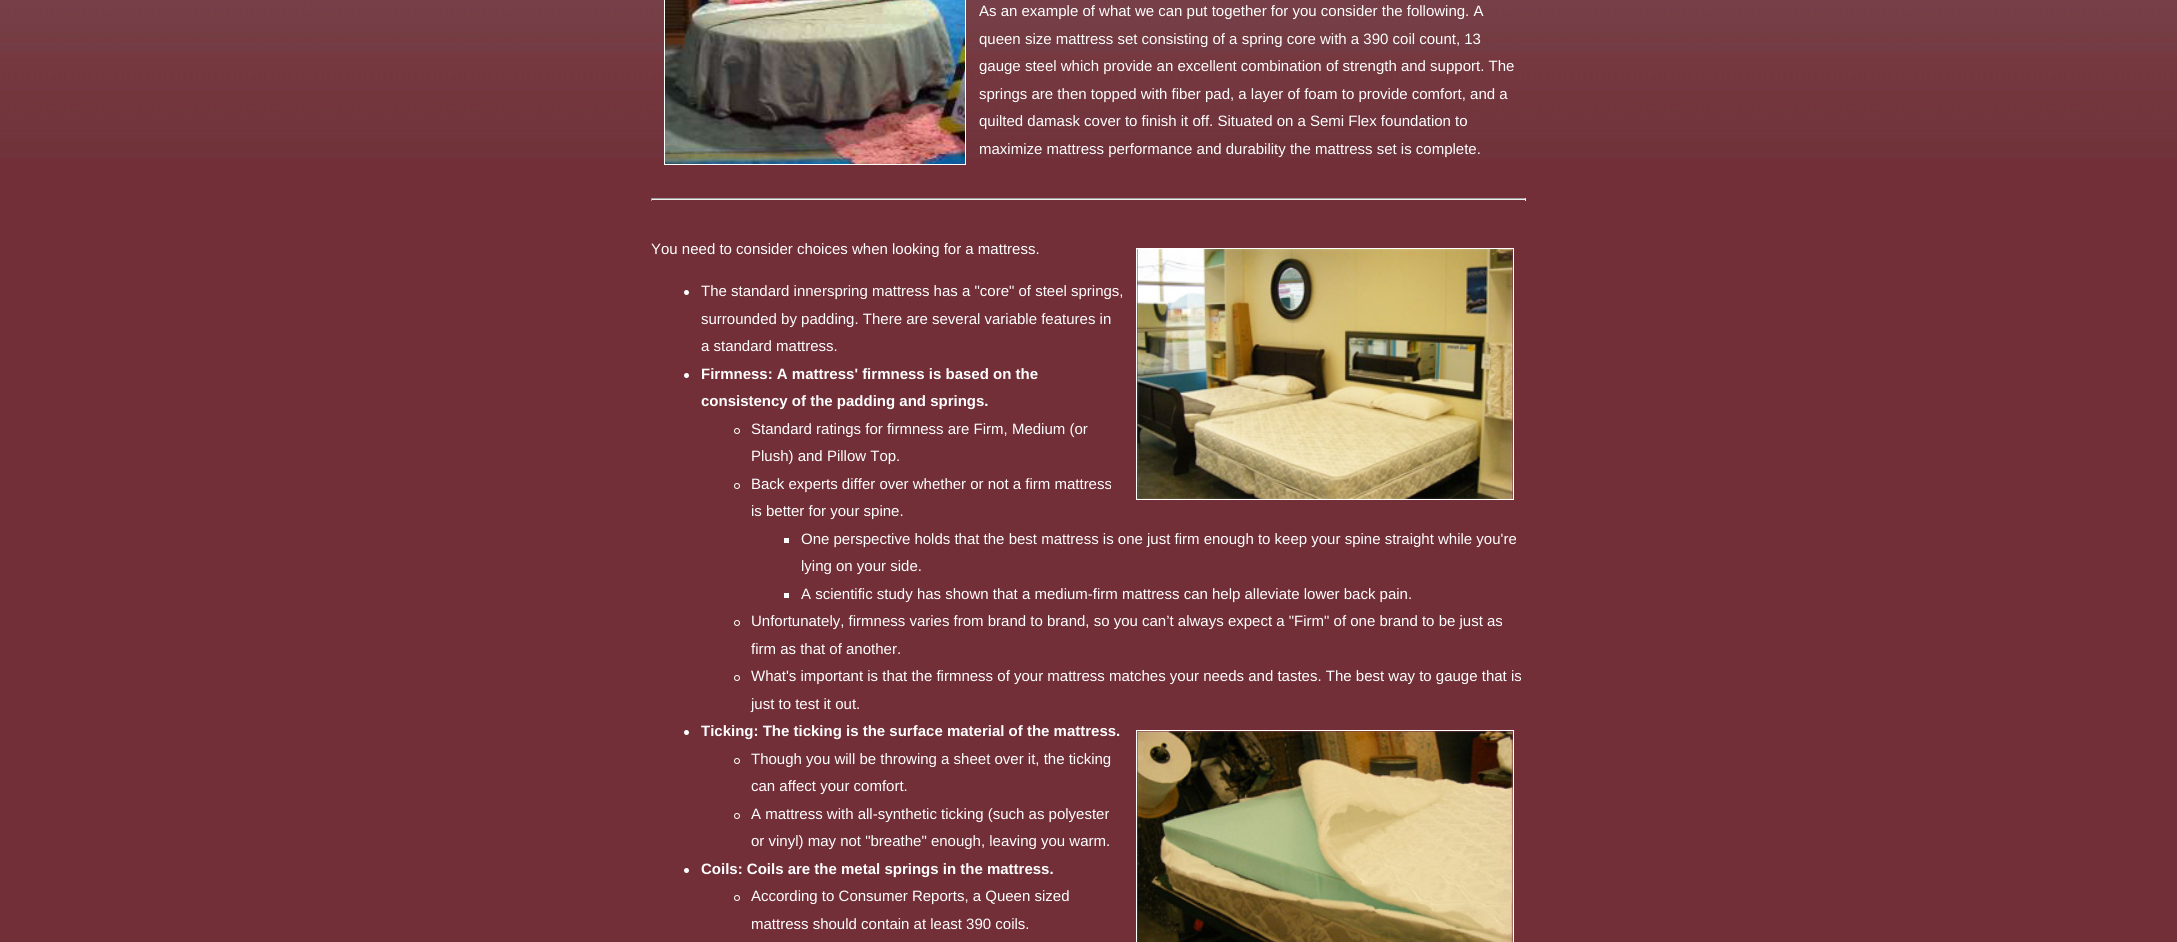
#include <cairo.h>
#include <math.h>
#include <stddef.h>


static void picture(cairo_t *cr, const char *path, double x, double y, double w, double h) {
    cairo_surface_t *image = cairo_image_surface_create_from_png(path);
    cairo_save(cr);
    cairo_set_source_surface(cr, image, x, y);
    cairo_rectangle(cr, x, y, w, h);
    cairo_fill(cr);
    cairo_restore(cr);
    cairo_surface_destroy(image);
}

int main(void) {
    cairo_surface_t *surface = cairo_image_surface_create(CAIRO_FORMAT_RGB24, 2177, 942);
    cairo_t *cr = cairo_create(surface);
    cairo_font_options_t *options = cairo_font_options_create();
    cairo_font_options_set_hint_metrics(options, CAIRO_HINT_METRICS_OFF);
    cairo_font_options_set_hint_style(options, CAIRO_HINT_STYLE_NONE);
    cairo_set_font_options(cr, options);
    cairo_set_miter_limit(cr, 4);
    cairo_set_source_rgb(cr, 0.447, 0.184, 0.22);
    cairo_paint(cr);
    picture(cr, "img1.png", 0, 0, 2177, 158);
    cairo_rectangle(cr, 664.5, -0.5, 301, 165);
    cairo_set_source_rgb(cr, 1, 1, 1);
    cairo_set_line_width(cr, 1);
    cairo_stroke(cr);
    picture(cr, "img2.png", 665, 0, 300, 164);
    cairo_select_font_face(cr, "Liberation Sans", CAIRO_FONT_SLANT_NORMAL, CAIRO_FONT_WEIGHT_NORMAL);
    cairo_set_font_size(cr, 15);
    cairo_move_to(cr, 979, 16);
    cairo_show_text(cr, "As an example of what we can put together for you consider the following. A");
    cairo_move_to(cr, 979, 44);
    cairo_show_text(cr, "queen size mattress set consisting of a spring core with a 390 coil count, 13");
    cairo_move_to(cr, 979, 71);
    cairo_show_text(cr, "gauge steel which provide an excellent combination of strength and support. The");
    cairo_move_to(cr, 979, 99);
    cairo_show_text(cr, "springs are then topped with fiber pad, a layer of foam to provide comfort, and a");
    cairo_move_to(cr, 979, 126);
    cairo_show_text(cr, "quilted damask cover to finish it off. Situated on a Semi Flex foundation to");
    cairo_move_to(cr, 979, 154);
    cairo_show_text(cr, "maximize mattress performance and durability the mattress set is complete.");
    cairo_set_source_rgb(cr, 0.624, 0.624, 0.624);
    cairo_rectangle(cr, 651, 198, 875, 1);
    cairo_fill(cr);
    cairo_set_source_rgb(cr, 0.933, 0.933, 0.933);
    cairo_rectangle(cr, 1525, 198, 1, 3);
    cairo_fill(cr);
    cairo_rectangle(cr, 651, 199, 875, 1);
    cairo_fill(cr);
    cairo_set_source_rgb(cr, 0.624, 0.624, 0.624);
    cairo_rectangle(cr, 651, 198, 1, 3);
    cairo_fill(cr);
    cairo_set_source_rgb(cr, 1, 1, 1);
    cairo_move_to(cr, 651, 254);
    cairo_show_text(cr, "You need to consider choices when looking for a mattress.");
    cairo_rectangle(cr, 1136.5, 248.5, 377, 251);
    cairo_stroke(cr);
    picture(cr, "img3.png", 1137, 249, 376, 250);
    cairo_arc(cr, 686.5, 292.5, 2.5, 0, 2 * M_PI);
    cairo_fill(cr);
    cairo_move_to(cr, 701, 296);
    cairo_show_text(cr, "The standard innerspring mattress has a \"core\" of steel springs,");
    cairo_move_to(cr, 701, 324);
    cairo_show_text(cr, "surrounded by padding. There are several variable features in");
    cairo_move_to(cr, 701, 351);
    cairo_show_text(cr, "a standard mattress.");
    cairo_new_path(cr);
    cairo_arc(cr, 686.5, 375.5, 2.5, 0, 2 * M_PI);
    cairo_fill(cr);
    cairo_select_font_face(cr, "Liberation Sans", CAIRO_FONT_SLANT_NORMAL, CAIRO_FONT_WEIGHT_BOLD);
    cairo_move_to(cr, 701, 379);
    cairo_show_text(cr, "Firmness: A mattress' firmness is based on the");
    cairo_move_to(cr, 701, 406);
    cairo_show_text(cr, "consistency of the padding and springs.");
    cairo_new_path(cr);
    cairo_arc(cr, 737, 431, 2.5, 0, 2 * M_PI);
    cairo_stroke(cr);
    cairo_select_font_face(cr, "Liberation Sans", CAIRO_FONT_SLANT_NORMAL, CAIRO_FONT_WEIGHT_NORMAL);
    cairo_move_to(cr, 751, 434);
    cairo_show_text(cr, "Standard ratings for firmness are Firm, Medium (or");
    cairo_move_to(cr, 751, 461);
    cairo_show_text(cr, "Plush) and Pillow Top.");
    cairo_new_path(cr);
    cairo_arc(cr, 737, 486, 2.5, 0, 2 * M_PI);
    cairo_stroke(cr);
    cairo_move_to(cr, 751, 489);
    cairo_show_text(cr, "Back experts differ over whether or not a firm mattress");
    cairo_move_to(cr, 751, 516);
    cairo_show_text(cr, "is better for your spine.");
    cairo_rectangle(cr, 784, 538, 5, 5);
    cairo_fill(cr);
    cairo_move_to(cr, 801, 544);
    cairo_show_text(cr, "One perspective holds that the best mattress is one just firm enough to keep your spine straight while you're");
    cairo_move_to(cr, 801, 571);
    cairo_show_text(cr, "lying on your side.");
    cairo_rectangle(cr, 784, 593, 5, 5);
    cairo_fill(cr);
    cairo_move_to(cr, 801, 599);
    cairo_show_text(cr, "A scientific study has shown that a medium-firm mattress can help alleviate lower back pain.");
    cairo_new_path(cr);
    cairo_arc(cr, 737, 623, 2.5, 0, 2 * M_PI);
    cairo_stroke(cr);
    cairo_move_to(cr, 751, 626);
    cairo_show_text(cr, "Unfortunately, firmness varies from brand to brand, so you can’t always expect a \"Firm\" of one brand to be just as");
    cairo_move_to(cr, 751, 654);
    cairo_show_text(cr, "firm as that of another.");
    cairo_new_path(cr);
    cairo_arc(cr, 737, 678, 2.5, 0, 2 * M_PI);
    cairo_stroke(cr);
    cairo_move_to(cr, 751, 681);
    cairo_show_text(cr, "What's important is that the firmness of your mattress matches your needs and tastes. The best way to gauge that is");
    cairo_move_to(cr, 751, 709);
    cairo_show_text(cr, "just to test it out.");
    cairo_new_path(cr);
    cairo_arc(cr, 686.5, 732.5, 2.5, 0, 2 * M_PI);
    cairo_fill(cr);
    cairo_select_font_face(cr, "Liberation Sans", CAIRO_FONT_SLANT_NORMAL, CAIRO_FONT_WEIGHT_BOLD);
    cairo_move_to(cr, 701, 736);
    cairo_show_text(cr, "Ticking: The ticking is the surface material of the mattress.");
    cairo_new_path(cr);
    cairo_arc(cr, 737, 761, 2.5, 0, 2 * M_PI);
    cairo_stroke(cr);
    cairo_select_font_face(cr, "Liberation Sans", CAIRO_FONT_SLANT_NORMAL, CAIRO_FONT_WEIGHT_NORMAL);
    cairo_move_to(cr, 751, 764);
    cairo_show_text(cr, "Though you will be throwing a sheet over it, the ticking");
    cairo_move_to(cr, 751, 791);
    cairo_show_text(cr, "can affect your comfort.");
    cairo_new_path(cr);
    cairo_arc(cr, 737, 816, 2.5, 0, 2 * M_PI);
    cairo_stroke(cr);
    cairo_move_to(cr, 751, 819);
    cairo_show_text(cr, "A mattress with all-synthetic ticking (such as polyester");
    cairo_move_to(cr, 751, 846);
    cairo_show_text(cr, "or vinyl) may not \"breathe\" enough, leaving you warm.");
    cairo_rectangle(cr, 1136.5, 730.5, 377, 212);
    cairo_stroke(cr);
    picture(cr, "img4.png", 1137, 731, 376, 211);
    cairo_arc(cr, 686.5, 870.5, 2.5, 0, 2 * M_PI);
    cairo_fill(cr);
    cairo_select_font_face(cr, "Liberation Sans", CAIRO_FONT_SLANT_NORMAL, CAIRO_FONT_WEIGHT_BOLD);
    cairo_move_to(cr, 701, 874);
    cairo_show_text(cr, "Coils: Coils are the metal springs in the mattress.");
    cairo_new_path(cr);
    cairo_arc(cr, 737, 898, 2.5, 0, 2 * M_PI);
    cairo_stroke(cr);
    cairo_select_font_face(cr, "Liberation Sans", CAIRO_FONT_SLANT_NORMAL, CAIRO_FONT_WEIGHT_NORMAL);
    cairo_move_to(cr, 751, 901);
    cairo_show_text(cr, "According to Consumer Reports, a Queen sized");
    cairo_move_to(cr, 751, 929);
    cairo_show_text(cr, "mattress should contain at least 390 coils.");
    cairo_surface_write_to_png(surface, "page.png");
    cairo_font_options_destroy(options);
    cairo_destroy(cr);
    cairo_surface_destroy(surface);
    return 0;
}
